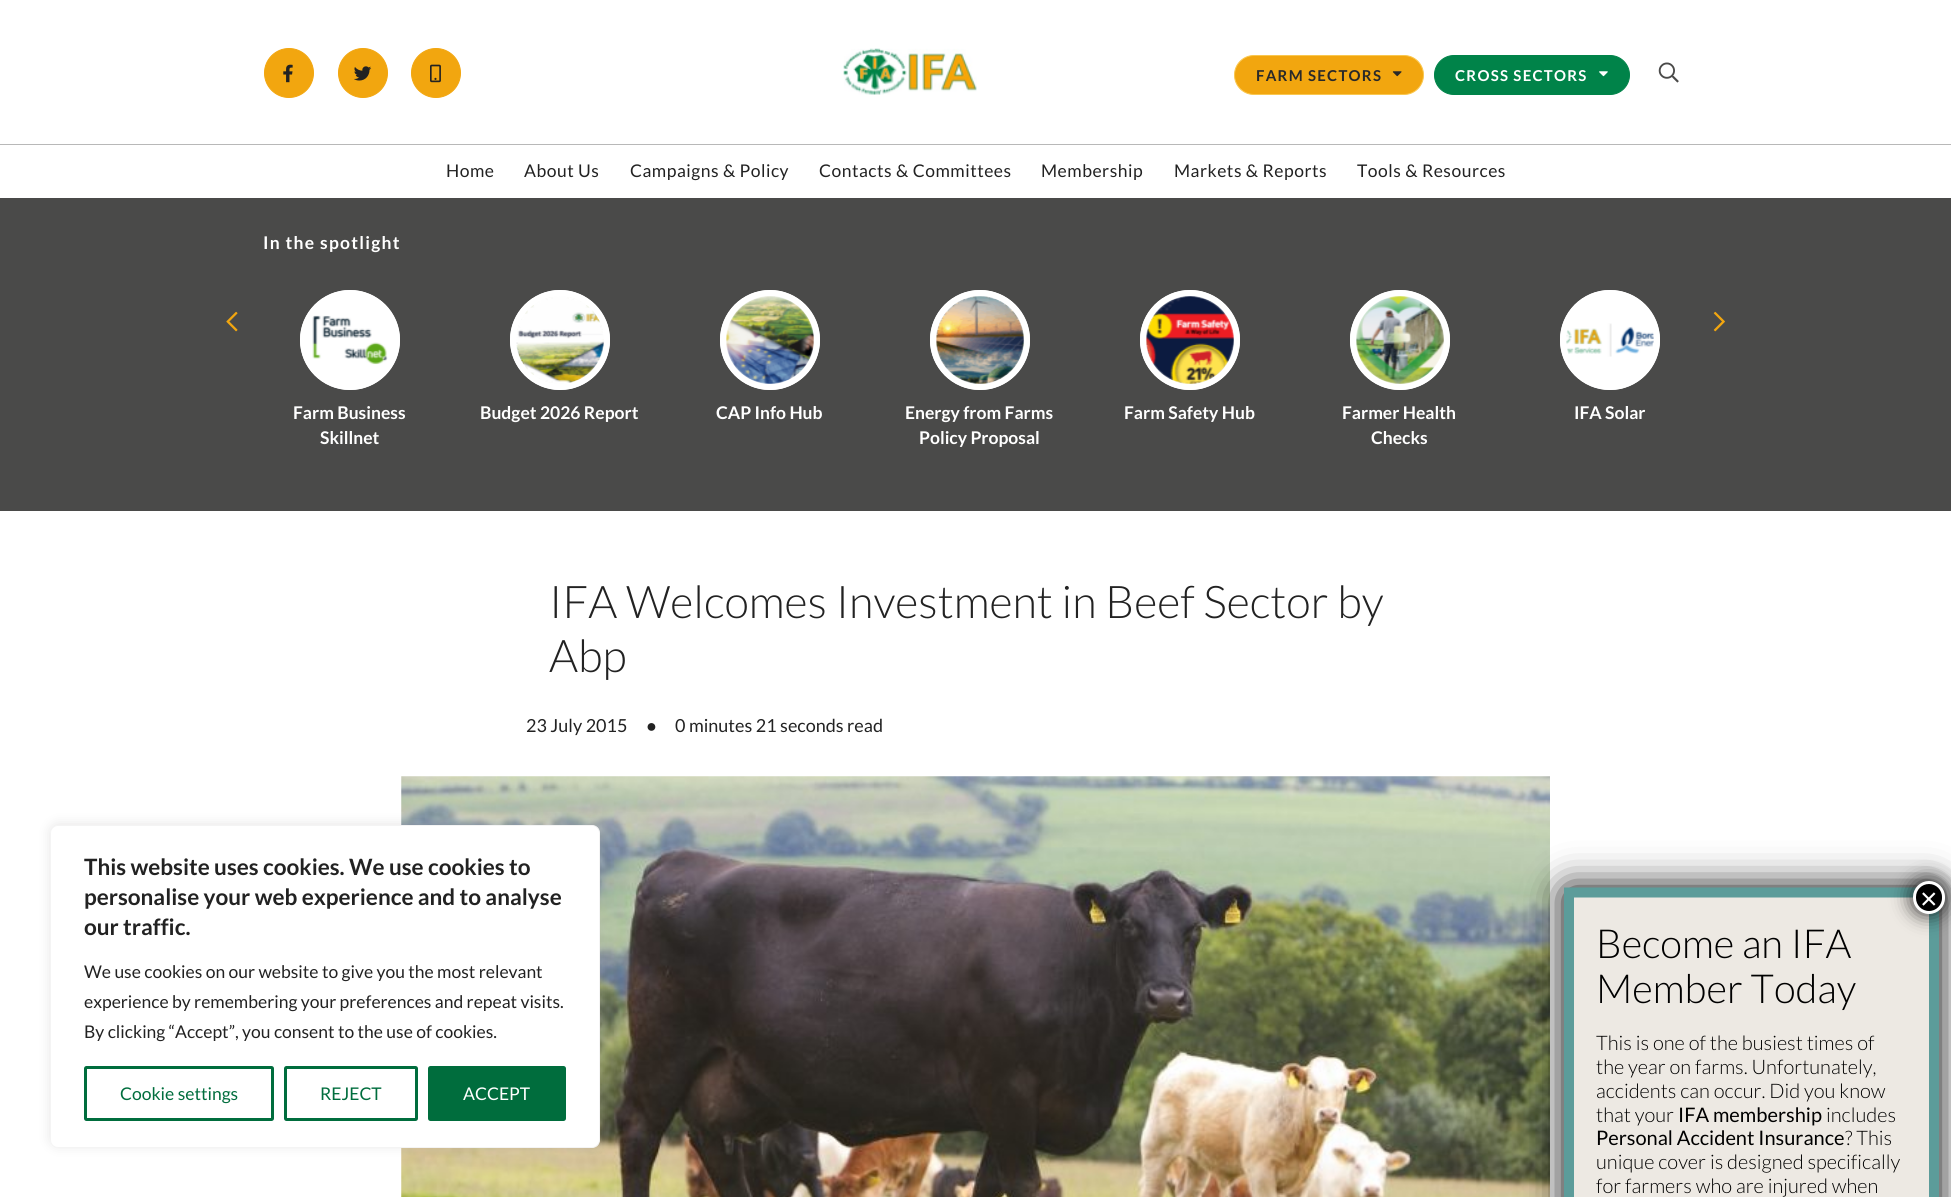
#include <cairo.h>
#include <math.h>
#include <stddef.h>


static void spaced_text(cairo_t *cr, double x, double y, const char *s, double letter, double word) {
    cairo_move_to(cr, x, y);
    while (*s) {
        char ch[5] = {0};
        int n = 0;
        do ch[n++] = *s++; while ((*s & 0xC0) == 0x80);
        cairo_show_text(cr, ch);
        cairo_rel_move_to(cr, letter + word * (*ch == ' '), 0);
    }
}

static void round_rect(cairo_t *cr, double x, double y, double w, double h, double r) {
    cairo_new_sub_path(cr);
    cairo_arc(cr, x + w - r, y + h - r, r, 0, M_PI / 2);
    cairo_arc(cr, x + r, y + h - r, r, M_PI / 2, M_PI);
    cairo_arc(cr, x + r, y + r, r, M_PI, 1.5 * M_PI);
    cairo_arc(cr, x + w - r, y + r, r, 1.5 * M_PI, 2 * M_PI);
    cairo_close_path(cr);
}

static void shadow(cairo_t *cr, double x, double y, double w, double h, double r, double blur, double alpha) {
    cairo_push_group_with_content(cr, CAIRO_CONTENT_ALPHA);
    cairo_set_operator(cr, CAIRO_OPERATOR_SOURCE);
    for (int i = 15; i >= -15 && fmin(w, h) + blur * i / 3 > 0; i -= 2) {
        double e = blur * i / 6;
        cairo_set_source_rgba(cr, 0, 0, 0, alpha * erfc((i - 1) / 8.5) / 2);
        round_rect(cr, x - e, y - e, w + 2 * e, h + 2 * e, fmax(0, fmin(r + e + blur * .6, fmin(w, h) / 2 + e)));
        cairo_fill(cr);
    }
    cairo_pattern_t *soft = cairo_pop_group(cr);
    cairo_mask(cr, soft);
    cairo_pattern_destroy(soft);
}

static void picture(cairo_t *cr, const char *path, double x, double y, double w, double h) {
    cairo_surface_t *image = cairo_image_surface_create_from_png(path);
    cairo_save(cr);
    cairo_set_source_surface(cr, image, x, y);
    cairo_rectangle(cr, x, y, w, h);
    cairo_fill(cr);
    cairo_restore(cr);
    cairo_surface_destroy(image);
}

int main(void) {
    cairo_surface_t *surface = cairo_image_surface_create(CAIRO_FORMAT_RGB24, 1951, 1197);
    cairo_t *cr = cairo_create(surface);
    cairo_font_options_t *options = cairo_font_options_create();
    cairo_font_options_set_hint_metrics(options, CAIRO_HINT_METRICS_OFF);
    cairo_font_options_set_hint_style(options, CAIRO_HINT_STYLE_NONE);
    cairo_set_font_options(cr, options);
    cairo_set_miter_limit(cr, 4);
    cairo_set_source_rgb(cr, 1, 1, 1);
    cairo_paint(cr);
    cairo_set_source_rgb(cr, 0.949, 0.651, 0.059);
    cairo_arc(cr, 289, 73, 24.5, 0, 2 * M_PI);
    cairo_fill_preserve(cr);
    cairo_set_line_width(cr, 1);
    cairo_stroke(cr);
    picture(cr, "img1.png", 283, 64, 10, 19);
    cairo_arc(cr, 363, 73, 24.5, 0, 2 * M_PI);
    cairo_fill_preserve(cr);
    cairo_stroke(cr);
    picture(cr, "img2.png", 354, 66, 18, 15);
    cairo_arc(cr, 436, 73, 24.5, 0, 2 * M_PI);
    cairo_fill_preserve(cr);
    cairo_stroke(cr);
    picture(cr, "img3.png", 430, 64, 11, 19);
    picture(cr, "img4.png", 843, 48, 134, 47);
    round_rect(cr, 1234.5, 55.5, 189, 39, 19.5);
    cairo_fill_preserve(cr);
    cairo_set_source_rgb(cr, 0.976, 0.78, 0.31);
    cairo_stroke(cr);
    cairo_select_font_face(cr, "Lato", CAIRO_FONT_SLANT_NORMAL, CAIRO_FONT_WEIGHT_BOLD);
    cairo_set_font_size(cr, 15);
    cairo_set_source_rgb(cr, 0.161, 0.161, 0.161);
    spaced_text(cr, 1256, 81, "FARM SECTORS", 1.25, 0);
    picture(cr, "img5.png", 1392, 71, 10, 6);
    cairo_set_source_rgb(cr, 0, 0.514, 0.286);
    round_rect(cr, 1434.5, 55.5, 195, 39, 19.5);
    cairo_fill_preserve(cr);
    cairo_stroke(cr);
    cairo_set_source_rgb(cr, 1, 1, 1);
    spaced_text(cr, 1455, 81, "CROSS SECTORS", 1.25, 0);
    picture(cr, "img6.png", 1599, 71, 9, 6);
    picture(cr, "img7.png", 1658, 62, 21, 21);
    cairo_set_source_rgb(cr, 0.722, 0.722, 0.722);
    cairo_rectangle(cr, 0, 144, 1951, 1);
    cairo_fill(cr);
    cairo_select_font_face(cr, "Lato", CAIRO_FONT_SLANT_NORMAL, CAIRO_FONT_WEIGHT_NORMAL);
    cairo_set_font_size(cr, 17.5);
    cairo_set_source_rgb(cr, 0.133, 0.133, 0.133);
    spaced_text(cr, 446, 177, "Home", 0.5, 0);
    spaced_text(cr, 524, 177, "About Us", 0.5, 0);
    spaced_text(cr, 630, 177, "Campaigns & Policy", 0.5, 0);
    spaced_text(cr, 819, 177, "Contacts & Committees", 0.5, 0);
    spaced_text(cr, 1041, 177, "Membership", 0.5, 0);
    spaced_text(cr, 1174, 177, "Markets & Reports", 0.5, 0);
    spaced_text(cr, 1357, 177, "Tools & Resources", 0.5, 0);
    cairo_set_source_rgb(cr, 0.29, 0.29, 0.286);
    cairo_rectangle(cr, 0, 198, 1951, 313);
    cairo_fill(cr);
    cairo_select_font_face(cr, "Lato", CAIRO_FONT_SLANT_NORMAL, CAIRO_FONT_WEIGHT_BOLD);
    cairo_set_source_rgb(cr, 1, 1, 1);
    spaced_text(cr, 263, 249, "In the spotlight", 1.25, 0);
    picture(cr, "img8.png", 226, 311, 12, 21);
    picture(cr, "img9.png", 1713, 311, 12, 21);
    cairo_arc(cr, 350, 340, 50, 0, 2 * M_PI);
    cairo_fill(cr);
    picture(cr, "img10.png", 312, 315, 76, 50);
    cairo_arc(cr, 350, 340, 47, 0, 2 * M_PI);
    cairo_set_line_width(cr, 6);
    cairo_stroke(cr);
    cairo_move_to(cr, 293, 419);
    cairo_show_text(cr, "Farm Business");
    cairo_move_to(cr, 320, 444);
    cairo_show_text(cr, "Skillnet");
    cairo_new_path(cr);
    cairo_arc(cr, 560, 340, 50, 0, 2 * M_PI);
    cairo_fill(cr);
    picture(cr, "img11.png", 516, 296, 88, 88);
    cairo_arc(cr, 560, 340, 47, 0, 2 * M_PI);
    cairo_stroke(cr);
    cairo_move_to(cr, 480, 419);
    cairo_show_text(cr, "Budget 2026 Report");
    cairo_new_path(cr);
    cairo_arc(cr, 770, 340, 50, 0, 2 * M_PI);
    cairo_fill(cr);
    picture(cr, "img12.png", 726, 296, 88, 88);
    cairo_arc(cr, 770, 340, 47, 0, 2 * M_PI);
    cairo_stroke(cr);
    cairo_move_to(cr, 716, 419);
    cairo_show_text(cr, "CAP Info Hub");
    cairo_new_path(cr);
    cairo_arc(cr, 980, 340, 50, 0, 2 * M_PI);
    cairo_fill(cr);
    picture(cr, "img13.png", 936, 296, 88, 88);
    cairo_arc(cr, 980, 340, 47, 0, 2 * M_PI);
    cairo_stroke(cr);
    cairo_move_to(cr, 905, 419);
    cairo_show_text(cr, "Energy from Farms");
    cairo_move_to(cr, 919, 444);
    cairo_show_text(cr, "Policy Proposal");
    cairo_new_path(cr);
    cairo_arc(cr, 1190, 340, 50, 0, 2 * M_PI);
    cairo_fill(cr);
    picture(cr, "img14.png", 1146, 296, 88, 88);
    cairo_arc(cr, 1190, 340, 47, 0, 2 * M_PI);
    cairo_stroke(cr);
    cairo_move_to(cr, 1124, 419);
    cairo_show_text(cr, "Farm Safety Hub");
    cairo_new_path(cr);
    cairo_arc(cr, 1400, 340, 50, 0, 2 * M_PI);
    cairo_fill(cr);
    picture(cr, "img15.png", 1356, 296, 88, 88);
    cairo_arc(cr, 1400, 340, 47, 0, 2 * M_PI);
    cairo_stroke(cr);
    cairo_move_to(cr, 1342, 419);
    cairo_show_text(cr, "Farmer Health");
    cairo_move_to(cr, 1371, 444);
    cairo_show_text(cr, "Checks");
    cairo_new_path(cr);
    cairo_arc(cr, 1610, 340, 50, 0, 2 * M_PI);
    cairo_fill(cr);
    picture(cr, "img16.png", 1566, 323, 88, 34);
    cairo_arc(cr, 1610, 340, 47, 0, 2 * M_PI);
    cairo_stroke(cr);
    cairo_move_to(cr, 1574, 419);
    cairo_show_text(cr, "IFA Solar");
    cairo_select_font_face(cr, "Lato Light", CAIRO_FONT_SLANT_NORMAL, CAIRO_FONT_WEIGHT_NORMAL);
    cairo_set_font_size(cr, 45);
    cairo_set_source_rgb(cr, 0.133, 0.133, 0.133);
    cairo_move_to(cr, 549, 618);
    cairo_show_text(cr, "IFA Welcomes Investment in Beef Sector by");
    cairo_move_to(cr, 549, 672);
    cairo_show_text(cr, "Abp");
    cairo_select_font_face(cr, "Lato", CAIRO_FONT_SLANT_NORMAL, CAIRO_FONT_WEIGHT_NORMAL);
    cairo_set_font_size(cr, 18);
    cairo_move_to(cr, 526, 732);
    cairo_show_text(cr, "23 July 2015");
    cairo_select_font_face(cr, "Liberation Sans", CAIRO_FONT_SLANT_NORMAL, CAIRO_FONT_WEIGHT_NORMAL);
    cairo_move_to(cr, 646, 732);
    cairo_show_text(cr, "●");
    cairo_select_font_face(cr, "Lato", CAIRO_FONT_SLANT_NORMAL, CAIRO_FONT_WEIGHT_NORMAL);
    cairo_move_to(cr, 675, 732);
    cairo_show_text(cr, "0 minutes 21 seconds read");
    picture(cr, "img17.png", 401, 776, 1149, 421);
    cairo_set_source_rgb(cr, 0.675, 0.671, 0.671);
    shadow(cr, 50, 824, 550, 322, 8, 6, 0.3);
    cairo_set_source_rgb(cr, 1, 1, 1);
    round_rect(cr, 50.5, 825.5, 549, 322, 7.5);
    cairo_fill_preserve(cr);
    cairo_set_source_rgb(cr, 0.957, 0.957, 0.957);
    cairo_set_line_width(cr, 1);
    cairo_stroke(cr);
    cairo_select_font_face(cr, "Lato", CAIRO_FONT_SLANT_NORMAL, CAIRO_FONT_WEIGHT_BOLD);
    cairo_set_font_size(cr, 22.5);
    cairo_set_source_rgb(cr, 0.133, 0.133, 0.133);
    cairo_move_to(cr, 84, 875);
    cairo_show_text(cr, "This website uses cookies. We use cookies to");
    cairo_move_to(cr, 84, 905);
    cairo_show_text(cr, "personalise your web experience and to analyse");
    cairo_move_to(cr, 84, 935);
    cairo_show_text(cr, "our traffic.");
    cairo_select_font_face(cr, "Lato", CAIRO_FONT_SLANT_NORMAL, CAIRO_FONT_WEIGHT_NORMAL);
    cairo_set_font_size(cr, 17.5);
    cairo_move_to(cr, 84, 978);
    cairo_show_text(cr, "We use cookies on our website to give you the most relevant");
    cairo_move_to(cr, 84, 1008);
    cairo_show_text(cr, "experience by remembering your preferences and repeat visits.");
    cairo_move_to(cr, 84, 1038);
    cairo_show_text(cr, "By clicking “Accept”, you consent to the use of cookies.");
    round_rect(cr, 85.5, 1067.5, 187, 52, 1);
    cairo_set_source_rgb(cr, 0, 0.427, 0.239);
    cairo_set_line_width(cr, 3);
    cairo_stroke(cr);
    cairo_move_to(cr, 120, 1100);
    cairo_show_text(cr, "Cookie settings");
    round_rect(cr, 285.5, 1067.5, 131, 52, 1);
    cairo_stroke(cr);
    cairo_move_to(cr, 320, 1100);
    cairo_show_text(cr, "REJECT");
    round_rect(cr, 429.5, 1067.5, 135, 52, 1);
    cairo_fill_preserve(cr);
    cairo_stroke(cr);
    cairo_set_source_rgb(cr, 1, 1, 1);
    cairo_move_to(cr, 463, 1100);
    cairo_show_text(cr, "ACCEPT");
    cairo_set_source_rgb(cr, 0.008, 0.008, 0.008);
    shadow(cr, 1564, 888, 375, 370, 4, 19, 1);
    cairo_set_source_rgb(cr, 0.929, 0.914, 0.89);
    cairo_rectangle(cr, 1574, 897, 355, 300);
    cairo_fill(cr);
    cairo_new_path(cr);
    cairo_move_to(cr, 1569, 892.5);
    cairo_line_to(cr, 1934, 892.5);
    cairo_line_to(cr, 1934, 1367.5);
    cairo_line_to(cr, 1569, 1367.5);
    cairo_close_path(cr);
    cairo_set_source_rgb(cr, 0.361, 0.612, 0.604);
    cairo_set_line_width(cr, 10);
    cairo_stroke(cr);
    cairo_set_source_rgb(cr, 0.008, 0.008, 0.008);
    shadow(cr, 1911, 880, 35, 35, 17.5, 9.5, 0.75);
    cairo_set_source_rgb(cr, 0, 0, 0);
    round_rect(cr, 1914.5, 882.5, 29, 30, 14.5);
    cairo_fill_preserve(cr);
    cairo_set_source_rgb(cr, 1, 1, 1);
    cairo_set_line_width(cr, 3);
    cairo_stroke(cr);
    cairo_select_font_face(cr, "Liberation Sans", CAIRO_FONT_SLANT_NORMAL, CAIRO_FONT_WEIGHT_NORMAL);
    cairo_set_font_size(cr, 30);
    cairo_move_to(cr, 1920, 909);
    cairo_show_text(cr, "×");
    cairo_select_font_face(cr, "Lato Light", CAIRO_FONT_SLANT_NORMAL, CAIRO_FONT_WEIGHT_NORMAL);
    cairo_set_font_size(cr, 40);
    cairo_set_source_rgb(cr, 0, 0, 0);
    cairo_move_to(cr, 1596, 958);
    cairo_show_text(cr, "Become an IFA");
    cairo_move_to(cr, 1596, 1003);
    cairo_show_text(cr, "Member Today");
    cairo_set_font_size(cr, 20);
    cairo_move_to(cr, 1596, 1050);
    cairo_show_text(cr, "This is one of the busiest times of");
    cairo_move_to(cr, 1596, 1074);
    cairo_show_text(cr, "the year on farms. Unfortunately,");
    cairo_move_to(cr, 1596, 1098);
    cairo_show_text(cr, "accidents can occur. Did you know");
    cairo_move_to(cr, 1596, 1122);
    cairo_show_text(cr, "that your");
    cairo_select_font_face(cr, "Lato", CAIRO_FONT_SLANT_NORMAL, CAIRO_FONT_WEIGHT_NORMAL);
    cairo_move_to(cr, 1678, 1122);
    cairo_show_text(cr, "IFA membership");
    cairo_select_font_face(cr, "Lato Light", CAIRO_FONT_SLANT_NORMAL, CAIRO_FONT_WEIGHT_NORMAL);
    cairo_move_to(cr, 1826, 1122);
    cairo_show_text(cr, "includes");
    cairo_select_font_face(cr, "Lato", CAIRO_FONT_SLANT_NORMAL, CAIRO_FONT_WEIGHT_NORMAL);
    cairo_move_to(cr, 1596, 1145);
    cairo_show_text(cr, "Personal Accident Insurance");
    cairo_select_font_face(cr, "Lato Light", CAIRO_FONT_SLANT_NORMAL, CAIRO_FONT_WEIGHT_NORMAL);
    cairo_move_to(cr, 1845, 1145);
    cairo_show_text(cr, "? This");
    cairo_move_to(cr, 1596, 1169);
    cairo_show_text(cr, "unique cover is designed specifically");
    cairo_move_to(cr, 1596, 1193);
    cairo_show_text(cr, "for farmers who are injured when");
    cairo_surface_write_to_png(surface, "page.png");
    cairo_font_options_destroy(options);
    cairo_destroy(cr);
    cairo_surface_destroy(surface);
    return 0;
}
